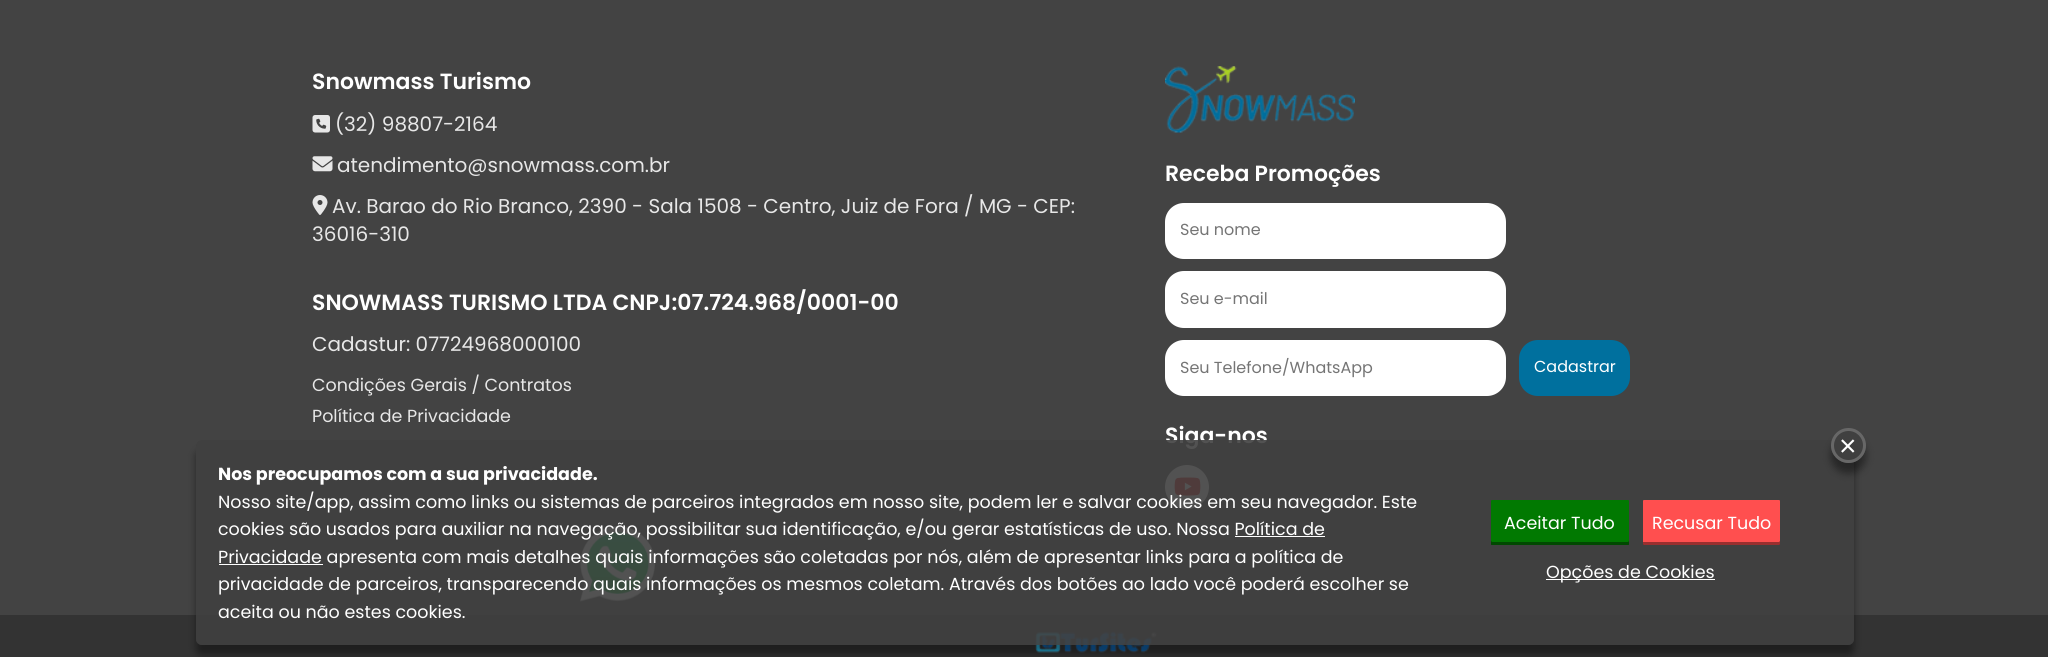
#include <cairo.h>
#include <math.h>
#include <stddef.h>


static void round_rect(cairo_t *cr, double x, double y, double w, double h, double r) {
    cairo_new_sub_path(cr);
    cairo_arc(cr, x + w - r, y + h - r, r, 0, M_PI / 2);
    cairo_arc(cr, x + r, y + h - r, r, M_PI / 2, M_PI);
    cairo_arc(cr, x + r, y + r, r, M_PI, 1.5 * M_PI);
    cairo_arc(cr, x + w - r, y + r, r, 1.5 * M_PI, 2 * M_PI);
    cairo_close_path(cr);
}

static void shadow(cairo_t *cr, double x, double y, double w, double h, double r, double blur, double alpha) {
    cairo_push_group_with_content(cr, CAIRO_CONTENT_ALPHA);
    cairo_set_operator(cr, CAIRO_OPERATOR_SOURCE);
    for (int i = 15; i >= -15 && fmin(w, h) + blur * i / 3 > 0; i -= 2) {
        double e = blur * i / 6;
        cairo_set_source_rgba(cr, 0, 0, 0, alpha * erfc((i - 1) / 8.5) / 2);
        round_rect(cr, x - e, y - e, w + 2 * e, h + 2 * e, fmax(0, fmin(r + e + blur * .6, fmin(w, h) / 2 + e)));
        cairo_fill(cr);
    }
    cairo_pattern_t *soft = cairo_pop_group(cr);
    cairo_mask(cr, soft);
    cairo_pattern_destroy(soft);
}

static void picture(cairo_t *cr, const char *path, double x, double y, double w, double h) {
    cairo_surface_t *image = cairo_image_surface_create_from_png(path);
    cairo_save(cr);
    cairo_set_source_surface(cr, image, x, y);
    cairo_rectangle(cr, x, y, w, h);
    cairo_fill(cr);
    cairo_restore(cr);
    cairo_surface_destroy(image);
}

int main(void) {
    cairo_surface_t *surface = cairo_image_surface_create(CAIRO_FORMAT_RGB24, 2048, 657);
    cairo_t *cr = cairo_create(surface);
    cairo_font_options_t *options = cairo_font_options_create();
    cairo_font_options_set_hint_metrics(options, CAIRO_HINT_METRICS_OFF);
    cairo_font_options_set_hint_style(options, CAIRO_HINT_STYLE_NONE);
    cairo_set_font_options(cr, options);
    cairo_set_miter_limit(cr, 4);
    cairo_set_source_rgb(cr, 0.263, 0.263, 0.263);
    cairo_paint(cr);
    cairo_select_font_face(cr, "Poppins SemiBold", CAIRO_FONT_SLANT_NORMAL, CAIRO_FONT_WEIGHT_NORMAL);
    cairo_set_font_size(cr, 22);
    cairo_set_source_rgb(cr, 1, 1, 1);
    cairo_move_to(cr, 312, 89);
    cairo_show_text(cr, "Snowmass Turismo");
    picture(cr, "img1.png", 312, 115, 18, 18);
    cairo_select_font_face(cr, "Poppins", CAIRO_FONT_SLANT_NORMAL, CAIRO_FONT_WEIGHT_NORMAL);
    cairo_set_font_size(cr, 20);
    cairo_set_source_rgb(cr, 0.906, 0.906, 0.906);
    cairo_move_to(cr, 335, 131);
    cairo_show_text(cr, "(32) 98807-2164");
    picture(cr, "img2.png", 312, 156, 21, 16);
    cairo_move_to(cr, 337, 172);
    cairo_show_text(cr, "atendimento@snowmass.com.br");
    picture(cr, "img3.png", 312, 195, 16, 20);
    cairo_move_to(cr, 332, 213);
    cairo_show_text(cr, "Av. Barao do Rio Branco, 2390 - Sala 1508 - Centro, Juiz de Fora / MG - CEP:");
    cairo_move_to(cr, 312, 241);
    cairo_show_text(cr, "36016-310");
    cairo_select_font_face(cr, "Poppins SemiBold", CAIRO_FONT_SLANT_NORMAL, CAIRO_FONT_WEIGHT_NORMAL);
    cairo_set_font_size(cr, 22);
    cairo_set_source_rgb(cr, 1, 1, 1);
    cairo_move_to(cr, 312, 310);
    cairo_show_text(cr, "SNOWMASS TURISMO LTDA CNPJ:07.724.968/0001-00");
    cairo_select_font_face(cr, "Poppins", CAIRO_FONT_SLANT_NORMAL, CAIRO_FONT_WEIGHT_NORMAL);
    cairo_set_font_size(cr, 20);
    cairo_set_source_rgb(cr, 0.906, 0.906, 0.906);
    cairo_move_to(cr, 312, 351);
    cairo_show_text(cr, "Cadastur: 07724968000100");
    cairo_set_font_size(cr, 17.5);
    cairo_move_to(cr, 312, 391);
    cairo_show_text(cr, "Condições Gerais / Contratos");
    cairo_move_to(cr, 312, 422);
    cairo_show_text(cr, "Política de Privacidade");
    picture(cr, "img4.png", 1165, 66, 190, 67);
    cairo_select_font_face(cr, "Poppins SemiBold", CAIRO_FONT_SLANT_NORMAL, CAIRO_FONT_WEIGHT_NORMAL);
    cairo_set_font_size(cr, 22);
    cairo_set_source_rgb(cr, 1, 1, 1);
    cairo_move_to(cr, 1165, 181);
    cairo_show_text(cr, "Receba Promoções");
    round_rect(cr, 1165, 203, 341, 56, 19);
    cairo_fill(cr);
    cairo_select_font_face(cr, "Poppins", CAIRO_FONT_SLANT_NORMAL, CAIRO_FONT_WEIGHT_NORMAL);
    cairo_set_font_size(cr, 16);
    cairo_set_source_rgb(cr, 0.459, 0.459, 0.459);
    cairo_move_to(cr, 1180, 235);
    cairo_show_text(cr, "Seu nome");
    cairo_set_source_rgb(cr, 1, 1, 1);
    round_rect(cr, 1165, 271, 341, 57, 19);
    cairo_fill(cr);
    cairo_set_source_rgb(cr, 0.459, 0.459, 0.459);
    cairo_move_to(cr, 1180, 304);
    cairo_show_text(cr, "Seu e-mail");
    cairo_set_source_rgb(cr, 1, 1, 1);
    round_rect(cr, 1165, 340, 341, 56, 19);
    cairo_fill(cr);
    cairo_set_source_rgb(cr, 0.459, 0.459, 0.459);
    cairo_move_to(cr, 1180, 373);
    cairo_show_text(cr, "Seu Telefone/WhatsApp");
    cairo_set_source_rgb(cr, 0, 0.439, 0.62);
    round_rect(cr, 1519, 340, 111, 56, 19);
    cairo_fill(cr);
    cairo_set_source_rgb(cr, 1, 1, 1);
    cairo_move_to(cr, 1534, 372);
    cairo_show_text(cr, "Cadastrar");
    cairo_select_font_face(cr, "Poppins SemiBold", CAIRO_FONT_SLANT_NORMAL, CAIRO_FONT_WEIGHT_NORMAL);
    cairo_set_font_size(cr, 22);
    cairo_move_to(cr, 1165, 443);
    cairo_show_text(cr, "Siga-nos");
    cairo_new_path(cr);
    cairo_arc(cr, 1187, 487, 22, 0, 2 * M_PI);
    cairo_fill(cr);
    picture(cr, "img5.png", 1174, 477, 27, 19);
    cairo_set_source_rgb(cr, 0.2, 0.2, 0.2);
    cairo_rectangle(cr, 0, 615, 2048, 42);
    cairo_fill(cr);
    picture(cr, "img6.png", 1035, 631, 122, 22);
    picture(cr, "img7.png", 580, 525, 75, 77);
    cairo_save(cr);
    cairo_set_fill_rule(cr, CAIRO_FILL_RULE_EVEN_ODD);
    cairo_new_path(cr);
    cairo_move_to(cr, 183, 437);
    cairo_line_to(cr, 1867, 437);
    cairo_line_to(cr, 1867, 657);
    cairo_line_to(cr, 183, 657);
    cairo_close_path(cr);
    cairo_move_to(cr, 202, 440);
    cairo_line_to(cr, 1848, 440);
    cairo_curve_to(cr, 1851.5, 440, 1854, 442.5, 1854, 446);
    cairo_line_to(cr, 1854, 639);
    cairo_curve_to(cr, 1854, 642.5, 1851.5, 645, 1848, 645);
    cairo_line_to(cr, 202, 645);
    cairo_curve_to(cr, 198.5, 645, 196, 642.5, 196, 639);
    cairo_line_to(cr, 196, 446);
    cairo_curve_to(cr, 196, 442.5, 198.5, 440, 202, 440);
    cairo_close_path(cr);
    cairo_clip(cr);
    cairo_set_source_rgb(cr, 0, 0, 0);
    shadow(cr, 196, 450, 1658, 205, 6, 4, 0.41);
    cairo_restore(cr);
    cairo_set_source_rgba(cr, 0.251, 0.251, 0.251, 0.9);
    round_rect(cr, 196, 440, 1658, 205, 6);
    cairo_fill(cr);
    cairo_save(cr);
    cairo_set_fill_rule(cr, CAIRO_FILL_RULE_EVEN_ODD);
    cairo_new_path(cr);
    cairo_move_to(cr, 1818, 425);
    cairo_line_to(cr, 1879, 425);
    cairo_line_to(cr, 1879, 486);
    cairo_line_to(cr, 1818, 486);
    cairo_close_path(cr);
    cairo_move_to(cr, 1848.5, 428);
    cairo_curve_to(cr, 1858, 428, 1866, 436, 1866, 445.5);
    cairo_curve_to(cr, 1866, 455, 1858, 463, 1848.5, 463);
    cairo_curve_to(cr, 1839, 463, 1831, 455, 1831, 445.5);
    cairo_curve_to(cr, 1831, 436, 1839, 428, 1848.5, 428);
    cairo_close_path(cr);
    cairo_clip(cr);
    cairo_set_source_rgb(cr, 0, 0, 0);
    shadow(cr, 1831, 438, 35, 35, 17.5, 4, 0.41);
    cairo_restore(cr);
    cairo_arc(cr, 1848.5, 445.5, 16, 0, 2 * M_PI);
    cairo_fill_preserve(cr);
    cairo_set_source_rgb(cr, 0.404, 0.404, 0.404);
    cairo_set_line_width(cr, 3);
    cairo_stroke(cr);
    cairo_select_font_face(cr, "Liberation Sans", CAIRO_FONT_SLANT_NORMAL, CAIRO_FONT_WEIGHT_NORMAL);
    cairo_set_font_size(cr, 30);
    cairo_set_source_rgb(cr, 1, 1, 1);
    cairo_move_to(cr, 1839, 456);
    cairo_show_text(cr, "×");
    cairo_select_font_face(cr, "Poppins", CAIRO_FONT_SLANT_NORMAL, CAIRO_FONT_WEIGHT_BOLD);
    cairo_set_font_size(cr, 17.5);
    cairo_move_to(cr, 218, 480);
    cairo_show_text(cr, "Nos preocupamos com a sua privacidade.");
    cairo_select_font_face(cr, "Poppins", CAIRO_FONT_SLANT_NORMAL, CAIRO_FONT_WEIGHT_NORMAL);
    cairo_move_to(cr, 218, 508);
    cairo_show_text(cr, "Nosso site/app, assim como links ou sistemas de parceiros integrados em nosso site, podem ler e salvar cookies em seu navegador. Este");
    cairo_move_to(cr, 218, 535);
    cairo_show_text(cr, "cookies são usados para auxiliar na navegação, possibilitar sua identificação, e/ou gerar estatísticas de uso. Nossa Política de");
    cairo_rectangle(cr, 219, 564, 104, 1);
    cairo_fill(cr);
    cairo_move_to(cr, 218, 563);
    cairo_show_text(cr, "Privacidade apresenta com mais detalhes quais informações são coletadas por nós, além de apresentar links para a política de");
    cairo_rectangle(cr, 1235, 536, 90, 1);
    cairo_fill(cr);
    cairo_move_to(cr, 218, 590);
    cairo_show_text(cr, "privacidade de parceiros, transparecendo quais informações os mesmos coletam. Através dos botões ao lado você poderá escolher se");
    cairo_move_to(cr, 218, 618);
    cairo_show_text(cr, "aceita ou não estes cookies.");
    cairo_set_source_rgb(cr, 0.004, 0.475, 0.004);
    round_rect(cr, 1491, 500, 138, 45, 1);
    cairo_fill(cr);
    cairo_set_source_rgba(cr, 0, 0, 0, 0.4);
    cairo_new_path(cr);
    cairo_move_to(cr, 1491, 541);
    cairo_line_to(cr, 1491, 544);
    cairo_curve_to(cr, 1491, 545, 1491, 545, 1492, 545);
    cairo_line_to(cr, 1628, 545);
    cairo_curve_to(cr, 1629, 545, 1629, 545, 1629, 544);
    cairo_line_to(cr, 1629, 541);
    cairo_line_to(cr, 1628, 542);
    cairo_line_to(cr, 1492, 542);
    cairo_close_path(cr);
    cairo_fill(cr);
    cairo_set_source_rgb(cr, 1, 1, 1);
    cairo_move_to(cr, 1504, 529);
    cairo_show_text(cr, "Aceitar Tudo");
    cairo_set_source_rgb(cr, 1, 0.31, 0.31);
    round_rect(cr, 1643, 500, 137, 45, 1);
    cairo_fill(cr);
    cairo_set_source_rgba(cr, 0, 0, 0, 0.4);
    cairo_new_path(cr);
    cairo_move_to(cr, 1643, 542);
    cairo_line_to(cr, 1643, 544);
    cairo_curve_to(cr, 1643, 545, 1643, 545, 1644, 545);
    cairo_line_to(cr, 1779, 545);
    cairo_curve_to(cr, 1780, 545, 1780, 545, 1780, 544);
    cairo_line_to(cr, 1780, 541);
    cairo_line_to(cr, 1779, 542);
    cairo_close_path(cr);
    cairo_fill(cr);
    cairo_set_source_rgb(cr, 1, 1, 1);
    cairo_move_to(cr, 1652, 529);
    cairo_show_text(cr, "Recusar Tudo");
    cairo_rectangle(cr, 1546, 579, 169, 1);
    cairo_fill(cr);
    cairo_move_to(cr, 1546, 578);
    cairo_show_text(cr, "Opções de Cookies");
    cairo_surface_write_to_png(surface, "page.png");
    cairo_font_options_destroy(options);
    cairo_destroy(cr);
    cairo_surface_destroy(surface);
    return 0;
}
